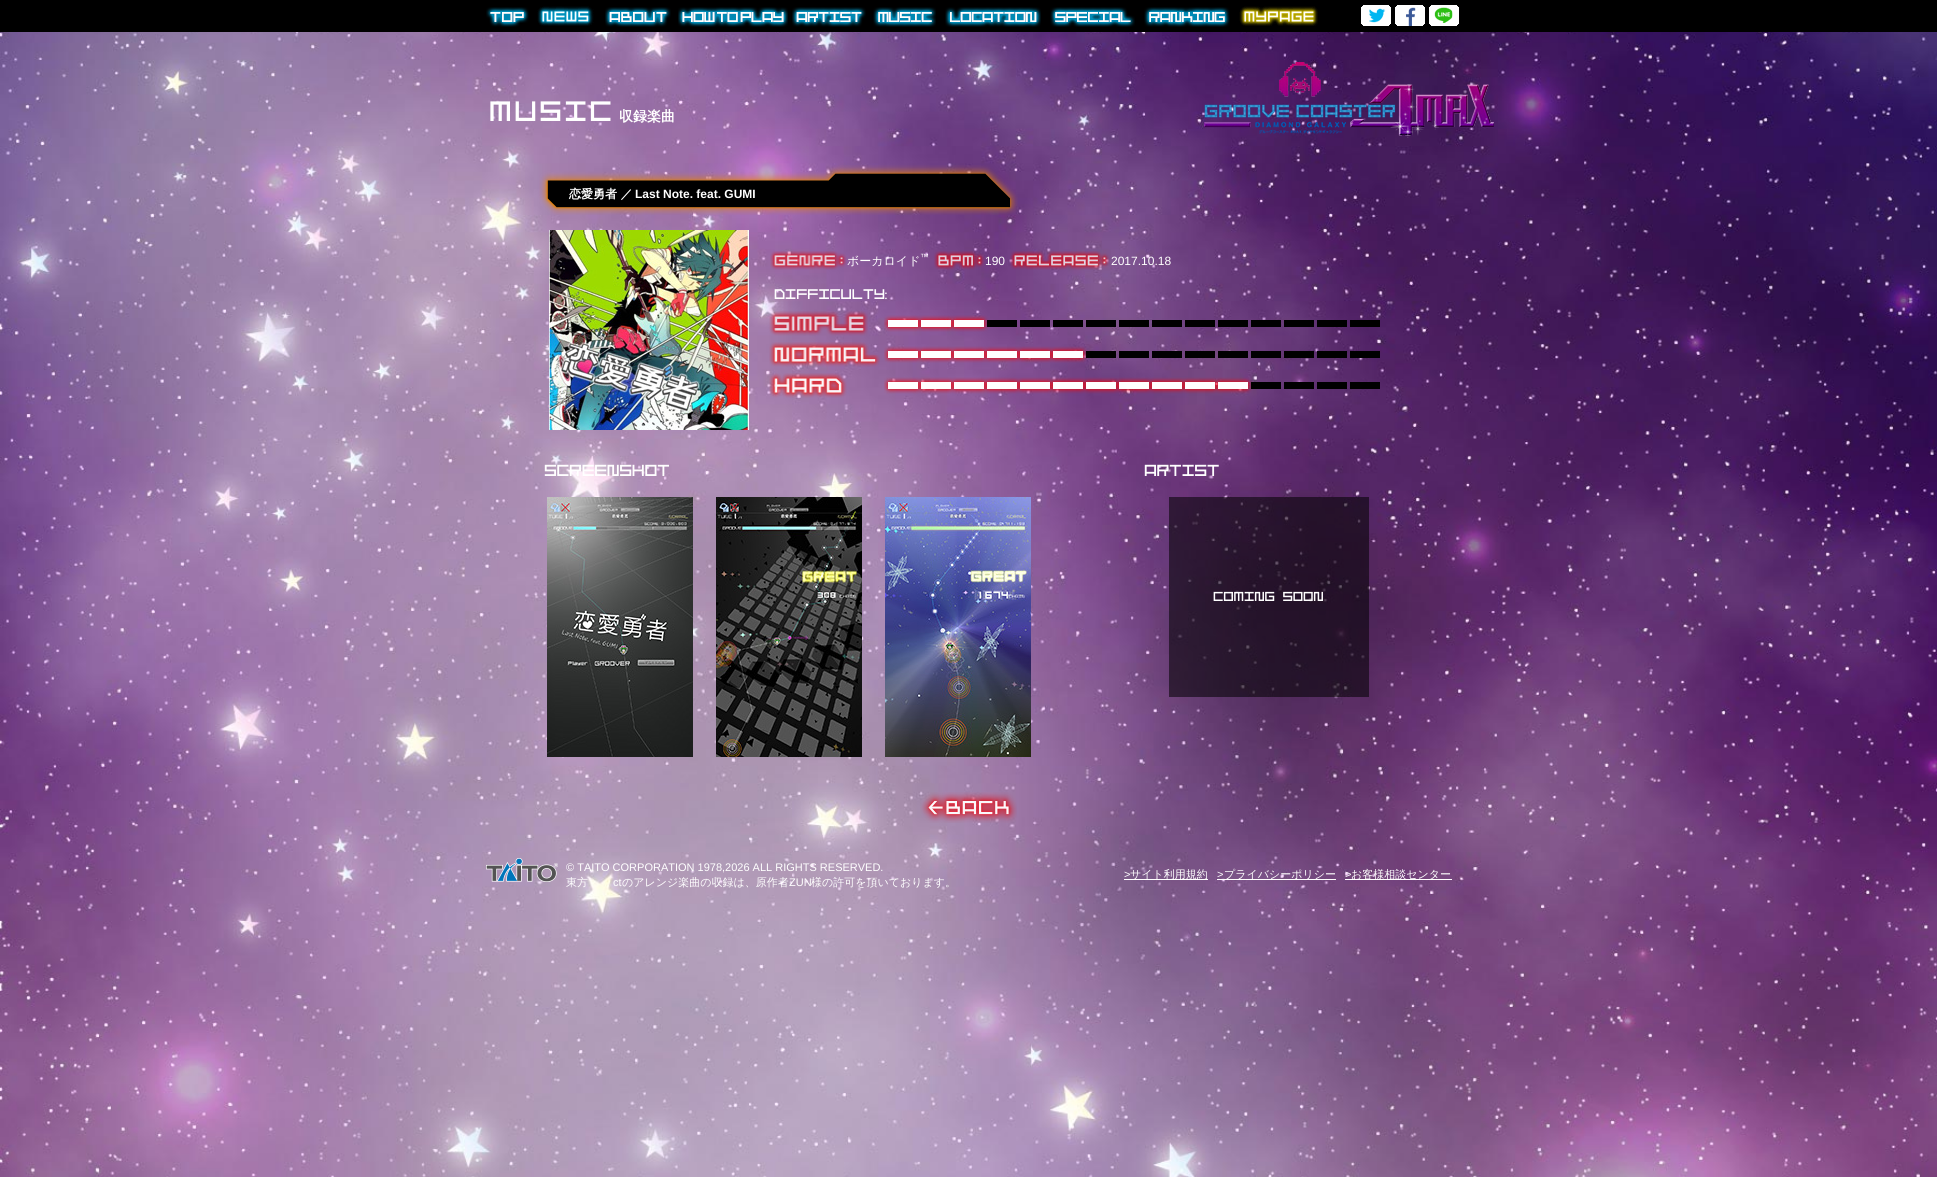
#include <cairo.h>
#include <math.h>
#include <stddef.h>


static void spaced_text(cairo_t *cr, double x, double y, const char *s, double letter, double word) {
    cairo_move_to(cr, x, y);
    while (*s) {
        char ch[5] = {0};
        int n = 0;
        do ch[n++] = *s++; while ((*s & 0xC0) == 0x80);
        cairo_show_text(cr, ch);
        cairo_rel_move_to(cr, letter + word * (*ch == ' '), 0);
    }
}

static void picture(cairo_t *cr, const char *path, double x, double y, double w, double h) {
    cairo_surface_t *image = cairo_image_surface_create_from_png(path);
    cairo_save(cr);
    cairo_set_source_surface(cr, image, x, y);
    cairo_rectangle(cr, x, y, w, h);
    cairo_fill(cr);
    cairo_restore(cr);
    cairo_surface_destroy(image);
}

int main(void) {
    cairo_surface_t *surface = cairo_image_surface_create(CAIRO_FORMAT_RGB24, 1937, 1177);
    cairo_t *cr = cairo_create(surface);
    cairo_font_options_t *options = cairo_font_options_create();
    cairo_font_options_set_hint_metrics(options, CAIRO_HINT_METRICS_OFF);
    cairo_font_options_set_hint_style(options, CAIRO_HINT_STYLE_NONE);
    cairo_set_font_options(cr, options);
    cairo_set_miter_limit(cr, 4);
    cairo_set_source_rgb(cr, 1, 1, 1);
    cairo_paint(cr);
    picture(cr, "img1.png", 0, 32, 1937, 1145);
    cairo_set_source_rgb(cr, 0, 0, 0);
    cairo_rectangle(cr, 0, 0, 1937, 32);
    cairo_fill(cr);
    picture(cr, "img2.png", 486, 7, 43, 20);
    picture(cr, "img3.png", 537, 6, 57, 20);
    picture(cr, "img4.png", 605, 7, 66, 20);
    picture(cr, "img5.png", 678, 7, 110, 20);
    picture(cr, "img6.png", 792, 7, 74, 20);
    picture(cr, "img7.png", 873, 7, 63, 20);
    picture(cr, "img8.png", 945, 7, 96, 20);
    picture(cr, "img9.png", 1050, 7, 85, 20);
    picture(cr, "img10.png", 1144, 7, 86, 20);
    picture(cr, "img11.png", 1239, 6, 79, 20);
    picture(cr, "img12.png", 1361, 5, 30, 21);
    picture(cr, "img13.png", 1395, 5, 30, 21);
    picture(cr, "img14.png", 1429, 5, 30, 21);
    picture(cr, "img15.png", 1204, 62, 290, 76);
    cairo_select_font_face(cr, "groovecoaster", CAIRO_FONT_SLANT_NORMAL, CAIRO_FONT_WEIGHT_NORMAL);
    cairo_set_font_size(cr, 28);
    cairo_set_source_rgb(cr, 1, 1, 1);
    spaced_text(cr, 489, 121, "MUSIC", 2.75, 0);
    cairo_select_font_face(cr, "WenQuanYi Zen Hei", CAIRO_FONT_SLANT_NORMAL, CAIRO_FONT_WEIGHT_BOLD);
    cairo_set_font_size(cr, 14);
    cairo_move_to(cr, 619, 121);
    cairo_show_text(cr, "収録楽曲");
    picture(cr, "img16.png", 539, 165, 479, 50);
    cairo_set_font_size(cr, 12);
    cairo_move_to(cr, 569, 198);
    cairo_show_text(cr, "恋愛勇者 ／");
    cairo_select_font_face(cr, "Liberation Sans", CAIRO_FONT_SLANT_NORMAL, CAIRO_FONT_WEIGHT_BOLD);
    cairo_move_to(cr, 635, 198);
    cairo_show_text(cr, "Last Note. feat. GUMI");
    picture(cr, "img17.png", 549, 230, 200, 200);
    picture(cr, "img18.png", 770, 251, 77, 19);
    cairo_select_font_face(cr, "WenQuanYi Zen Hei Medium", CAIRO_FONT_SLANT_NORMAL, CAIRO_FONT_WEIGHT_NORMAL);
    cairo_move_to(cr, 847, 265);
    cairo_show_text(cr, "ボーカロイド");
    cairo_select_font_face(cr, "Liberation Sans", CAIRO_FONT_SLANT_NORMAL, CAIRO_FONT_WEIGHT_NORMAL);
    cairo_set_font_size(cr, 9);
    cairo_move_to(cr, 920, 260);
    cairo_show_text(cr, "™");
    picture(cr, "img19.png", 934, 251, 51, 19);
    cairo_set_font_size(cr, 12);
    cairo_move_to(cr, 985, 265);
    cairo_show_text(cr, "190");
    picture(cr, "img20.png", 1010, 251, 100, 19);
    cairo_move_to(cr, 1111, 265);
    cairo_show_text(cr, "2017.10.18");
    cairo_select_font_face(cr, "groovecoaster", CAIRO_FONT_SLANT_NORMAL, CAIRO_FONT_WEIGHT_NORMAL);
    cairo_set_font_size(cr, 14);
    spaced_text(cr, 774, 299, "DIFFICULTY", -0.1, 0);
    cairo_select_font_face(cr, "Liberation Serif", CAIRO_FONT_SLANT_NORMAL, CAIRO_FONT_WEIGHT_NORMAL);
    spaced_text(cr, 884, 299, ":", -0.1, 0);
    picture(cr, "img21.png", 769, 311, 99, 25);
    picture(cr, "img22.png", 884, 315, 496, 17);
    picture(cr, "img23.png", 769, 342, 111, 25);
    picture(cr, "img24.png", 884, 346, 496, 17);
    picture(cr, "img25.png", 769, 373, 78, 25);
    picture(cr, "img26.png", 884, 377, 496, 17);
    cairo_select_font_face(cr, "groovecoaster", CAIRO_FONT_SLANT_NORMAL, CAIRO_FONT_WEIGHT_NORMAL);
    cairo_set_font_size(cr, 16);
    spaced_text(cr, 544, 476, "SCREENSHOT", -0.25, 0);
    picture(cr, "img27.png", 547, 497, 146, 260);
    picture(cr, "img28.png", 716, 497, 146, 260);
    picture(cr, "img29.png", 885, 497, 146, 260);
    spaced_text(cr, 1144, 476, "ARTIST", -0.25, 0);
    cairo_set_source_rgba(cr, 0, 0, 0, 0.55);
    cairo_rectangle(cr, 1169, 497, 200, 200);
    cairo_fill(cr);
    cairo_set_font_size(cr, 13);
    cairo_set_source_rgb(cr, 1, 1, 1);
    spaced_text(cr, 1213, 601, "COMING SOON", -0.1, 0);
    picture(cr, "img30.png", 920, 792, 97, 31);
    picture(cr, "img31.png", 486, 858, 72, 24);
    cairo_select_font_face(cr, "Liberation Sans", CAIRO_FONT_SLANT_NORMAL, CAIRO_FONT_WEIGHT_NORMAL);
    cairo_set_font_size(cr, 11);
    cairo_move_to(cr, 566, 871);
    cairo_show_text(cr, "© TAITO CORPORATION 1978,2026 ALL RIGHTS RESERVED.");
    cairo_select_font_face(cr, "WenQuanYi Zen Hei Medium", CAIRO_FONT_SLANT_NORMAL, CAIRO_FONT_WEIGHT_NORMAL);
    cairo_move_to(cr, 566, 886);
    cairo_show_text(cr, "東方");
    cairo_select_font_face(cr, "Liberation Sans", CAIRO_FONT_SLANT_NORMAL, CAIRO_FONT_WEIGHT_NORMAL);
    cairo_move_to(cr, 613, 886);
    cairo_show_text(cr, "ct");
    cairo_select_font_face(cr, "WenQuanYi Zen Hei Medium", CAIRO_FONT_SLANT_NORMAL, CAIRO_FONT_WEIGHT_NORMAL);
    cairo_move_to(cr, 622, 886);
    cairo_show_text(cr, "のアレンジ楽曲の収録は、原作者");
    cairo_select_font_face(cr, "Liberation Sans", CAIRO_FONT_SLANT_NORMAL, CAIRO_FONT_WEIGHT_NORMAL);
    cairo_move_to(cr, 789, 886);
    cairo_show_text(cr, "ZUN");
    cairo_select_font_face(cr, "WenQuanYi Zen Hei Medium", CAIRO_FONT_SLANT_NORMAL, CAIRO_FONT_WEIGHT_NORMAL);
    cairo_move_to(cr, 811, 886);
    cairo_show_text(cr, "様の許可を頂いております。");
    cairo_select_font_face(cr, "Liberation Sans", CAIRO_FONT_SLANT_NORMAL, CAIRO_FONT_WEIGHT_NORMAL);
    cairo_move_to(cr, 1124, 878);
    cairo_show_text(cr, ">");
    cairo_rectangle(cr, 1124, 879, 84, 1);
    cairo_fill(cr);
    cairo_select_font_face(cr, "WenQuanYi Zen Hei Medium", CAIRO_FONT_SLANT_NORMAL, CAIRO_FONT_WEIGHT_NORMAL);
    cairo_move_to(cr, 1130, 878);
    cairo_show_text(cr, "サイト利用規約");
    cairo_select_font_face(cr, "Liberation Sans", CAIRO_FONT_SLANT_NORMAL, CAIRO_FONT_WEIGHT_NORMAL);
    cairo_move_to(cr, 1217, 878);
    cairo_show_text(cr, ">");
    cairo_rectangle(cr, 1217, 879, 119, 1);
    cairo_fill(cr);
    cairo_select_font_face(cr, "WenQuanYi Zen Hei Medium", CAIRO_FONT_SLANT_NORMAL, CAIRO_FONT_WEIGHT_NORMAL);
    cairo_move_to(cr, 1224, 878);
    cairo_show_text(cr, "プライバシーポリシー");
    cairo_select_font_face(cr, "Liberation Sans", CAIRO_FONT_SLANT_NORMAL, CAIRO_FONT_WEIGHT_NORMAL);
    cairo_move_to(cr, 1345, 878);
    cairo_show_text(cr, ">");
    cairo_rectangle(cr, 1345, 879, 107, 1);
    cairo_fill(cr);
    cairo_select_font_face(cr, "WenQuanYi Zen Hei Medium", CAIRO_FONT_SLANT_NORMAL, CAIRO_FONT_WEIGHT_NORMAL);
    cairo_move_to(cr, 1351, 878);
    cairo_show_text(cr, "お客様相談センター");
    cairo_surface_write_to_png(surface, "page.png");
    cairo_font_options_destroy(options);
    cairo_destroy(cr);
    cairo_surface_destroy(surface);
    return 0;
}
